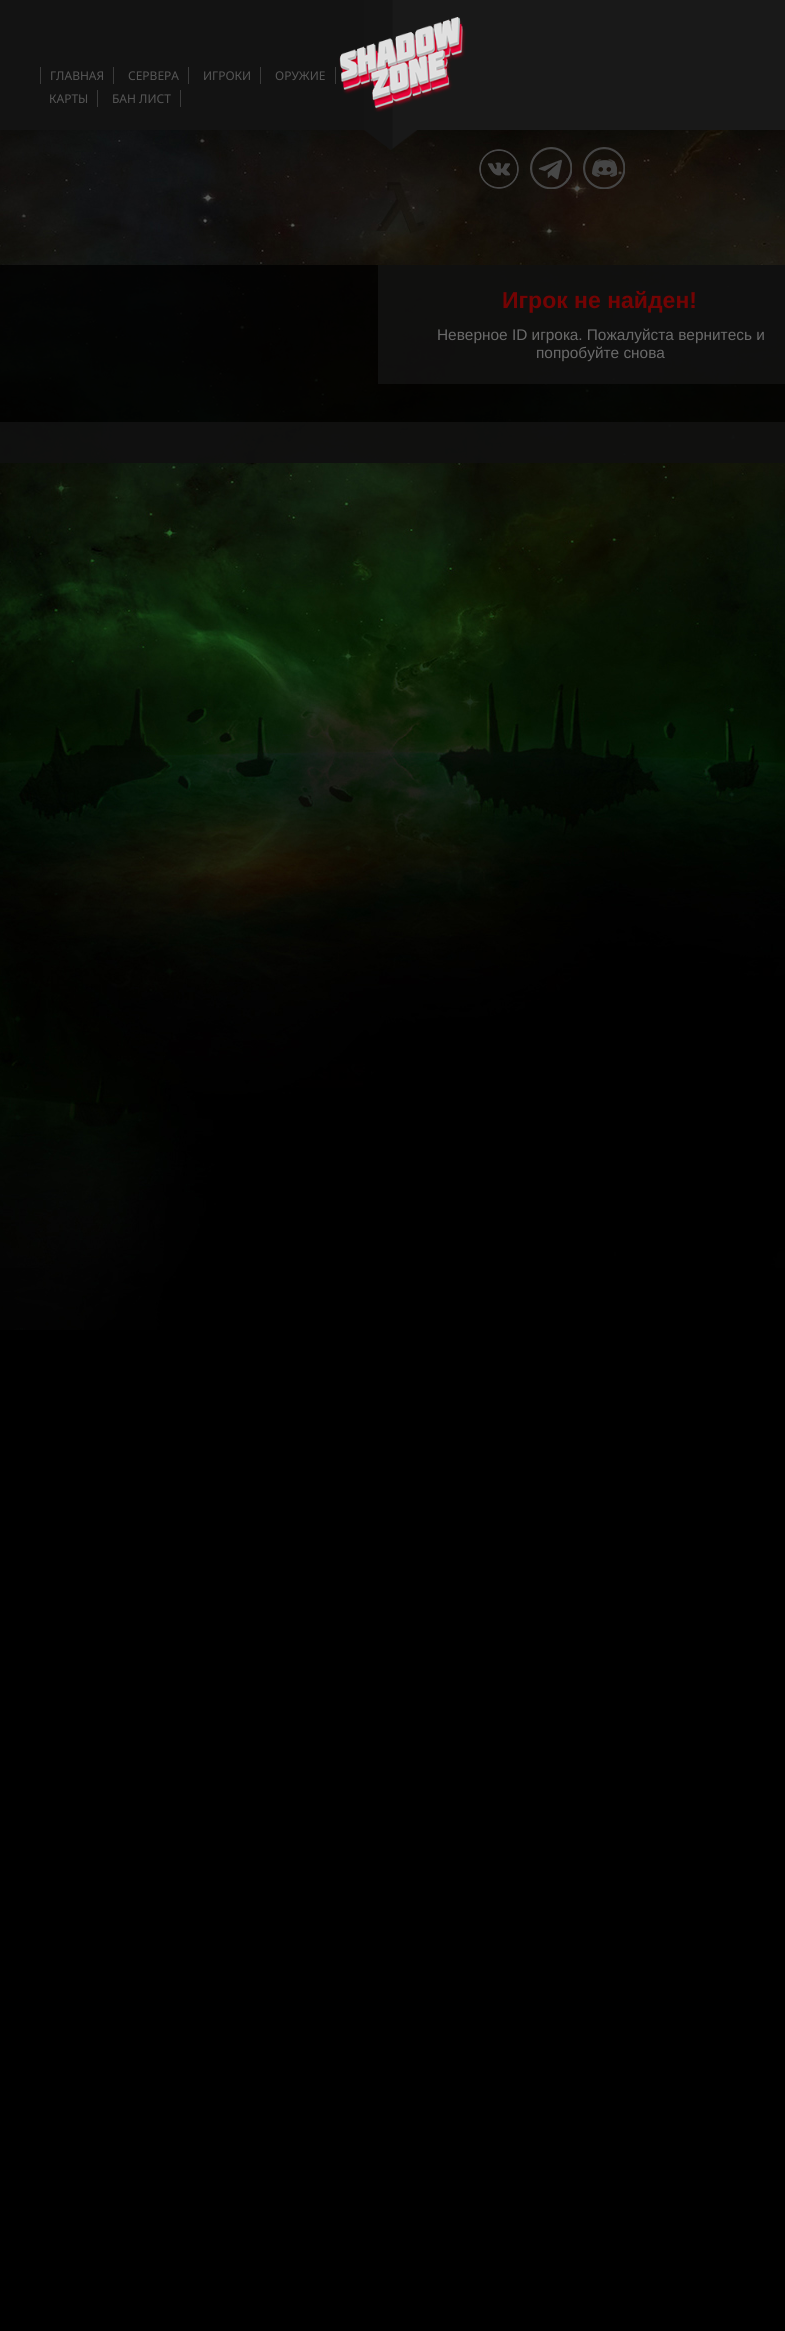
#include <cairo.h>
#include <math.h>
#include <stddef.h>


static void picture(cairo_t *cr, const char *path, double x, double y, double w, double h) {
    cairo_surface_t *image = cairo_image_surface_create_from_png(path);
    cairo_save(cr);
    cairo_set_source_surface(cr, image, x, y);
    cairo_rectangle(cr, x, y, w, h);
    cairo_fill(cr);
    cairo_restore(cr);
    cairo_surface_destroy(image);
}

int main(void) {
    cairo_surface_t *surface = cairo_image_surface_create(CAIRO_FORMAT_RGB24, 785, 2331);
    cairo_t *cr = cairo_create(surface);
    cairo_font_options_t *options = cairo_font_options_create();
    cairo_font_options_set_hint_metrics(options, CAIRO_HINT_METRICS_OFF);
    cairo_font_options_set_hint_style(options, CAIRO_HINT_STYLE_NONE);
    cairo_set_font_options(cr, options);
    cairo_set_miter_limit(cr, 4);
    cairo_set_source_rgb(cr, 0, 0, 0);
    cairo_paint(cr);
    picture(cr, "img1.png", 0, 130, 785, 1200);
    cairo_set_source_rgb(cr, 0.098, 0.098, 0.098);
    cairo_rectangle(cr, 417, 0, 368, 130);
    cairo_fill(cr);
    picture(cr, "img2.png", 364, 0, 53, 150);
    cairo_set_source_rgb(cr, 0.078, 0.078, 0.078);
    cairo_rectangle(cr, 0, 0, 364, 130);
    cairo_fill(cr);
    cairo_set_source_rgb(cr, 0.231, 0.231, 0.231);
    cairo_rectangle(cr, 113, 67, 1, 17);
    cairo_fill(cr);
    cairo_rectangle(cr, 40, 67, 1, 17);
    cairo_fill(cr);
    cairo_select_font_face(cr, "Noto Sans", CAIRO_FONT_SLANT_NORMAL, CAIRO_FONT_WEIGHT_NORMAL);
    cairo_set_font_size(cr, 12);
    cairo_set_source_rgb(cr, 0.337, 0.337, 0.337);
    cairo_move_to(cr, 50, 80);
    cairo_show_text(cr, "ГЛАВНАЯ");
    cairo_set_source_rgb(cr, 0.231, 0.231, 0.231);
    cairo_rectangle(cr, 188, 67, 1, 17);
    cairo_fill(cr);
    cairo_set_source_rgb(cr, 0.337, 0.337, 0.337);
    cairo_move_to(cr, 128, 80);
    cairo_show_text(cr, "СЕРВЕРА");
    cairo_set_source_rgb(cr, 0.231, 0.231, 0.231);
    cairo_rectangle(cr, 260, 67, 1, 17);
    cairo_fill(cr);
    cairo_set_source_rgb(cr, 0.337, 0.337, 0.337);
    cairo_move_to(cr, 203, 80);
    cairo_show_text(cr, "ИГРОКИ");
    cairo_set_source_rgb(cr, 0.231, 0.231, 0.231);
    cairo_rectangle(cr, 335, 67, 1, 17);
    cairo_fill(cr);
    cairo_set_source_rgb(cr, 0.337, 0.337, 0.337);
    cairo_move_to(cr, 275, 80);
    cairo_show_text(cr, "ОРУЖИЕ");
    cairo_set_source_rgb(cr, 0.231, 0.231, 0.231);
    cairo_rectangle(cr, 97, 90, 1, 17);
    cairo_fill(cr);
    cairo_set_source_rgb(cr, 0.337, 0.337, 0.337);
    cairo_move_to(cr, 49, 103);
    cairo_show_text(cr, "КАРТЫ");
    cairo_set_source_rgb(cr, 0.231, 0.231, 0.231);
    cairo_rectangle(cr, 180, 90, 1, 17);
    cairo_fill(cr);
    cairo_set_source_rgb(cr, 0.337, 0.337, 0.337);
    cairo_move_to(cr, 112, 103);
    cairo_show_text(cr, "БАН ЛИСТ");
    picture(cr, "img3.png", 339, 17, 127, 95);
    picture(cr, "img4.png", 479, 149, 40, 40);
    picture(cr, "img5.png", 530, 147, 42, 42);
    picture(cr, "img6.png", 583, 147, 42, 42);
    cairo_set_source_rgba(cr, 0, 0, 0, 0.8);
    cairo_rectangle(cr, 0, 265, 785, 198);
    cairo_fill(cr);
    cairo_set_source_rgba(cr, 0.078, 0.078, 0.078, 0.8);
    cairo_rectangle(cr, 378, 265, 407, 119);
    cairo_fill(cr);
    cairo_select_font_face(cr, "Liberation Sans", CAIRO_FONT_SLANT_NORMAL, CAIRO_FONT_WEIGHT_BOLD);
    cairo_set_font_size(cr, 23);
    cairo_set_source_rgb(cr, 0.451, 0.012, 0.012);
    cairo_move_to(cr, 502, 308);
    cairo_show_text(cr, "Игрок не найден!");
    cairo_select_font_face(cr, "Liberation Sans", CAIRO_FONT_SLANT_NORMAL, CAIRO_FONT_WEIGHT_NORMAL);
    cairo_set_font_size(cr, 15.4);
    cairo_set_source_rgb(cr, 0.416, 0.416, 0.416);
    cairo_move_to(cr, 437, 340);
    cairo_show_text(cr, "Неверное ID игрока. Пожалуйста вернитесь и");
    cairo_move_to(cr, 536, 358);
    cairo_show_text(cr, "попробуйте снова");
    cairo_set_source_rgba(cr, 0.078, 0.078, 0.078, 0.8);
    cairo_rectangle(cr, 0, 422, 785, 41);
    cairo_fill(cr);
    cairo_surface_write_to_png(surface, "page.png");
    cairo_font_options_destroy(options);
    cairo_destroy(cr);
    cairo_surface_destroy(surface);
    return 0;
}
